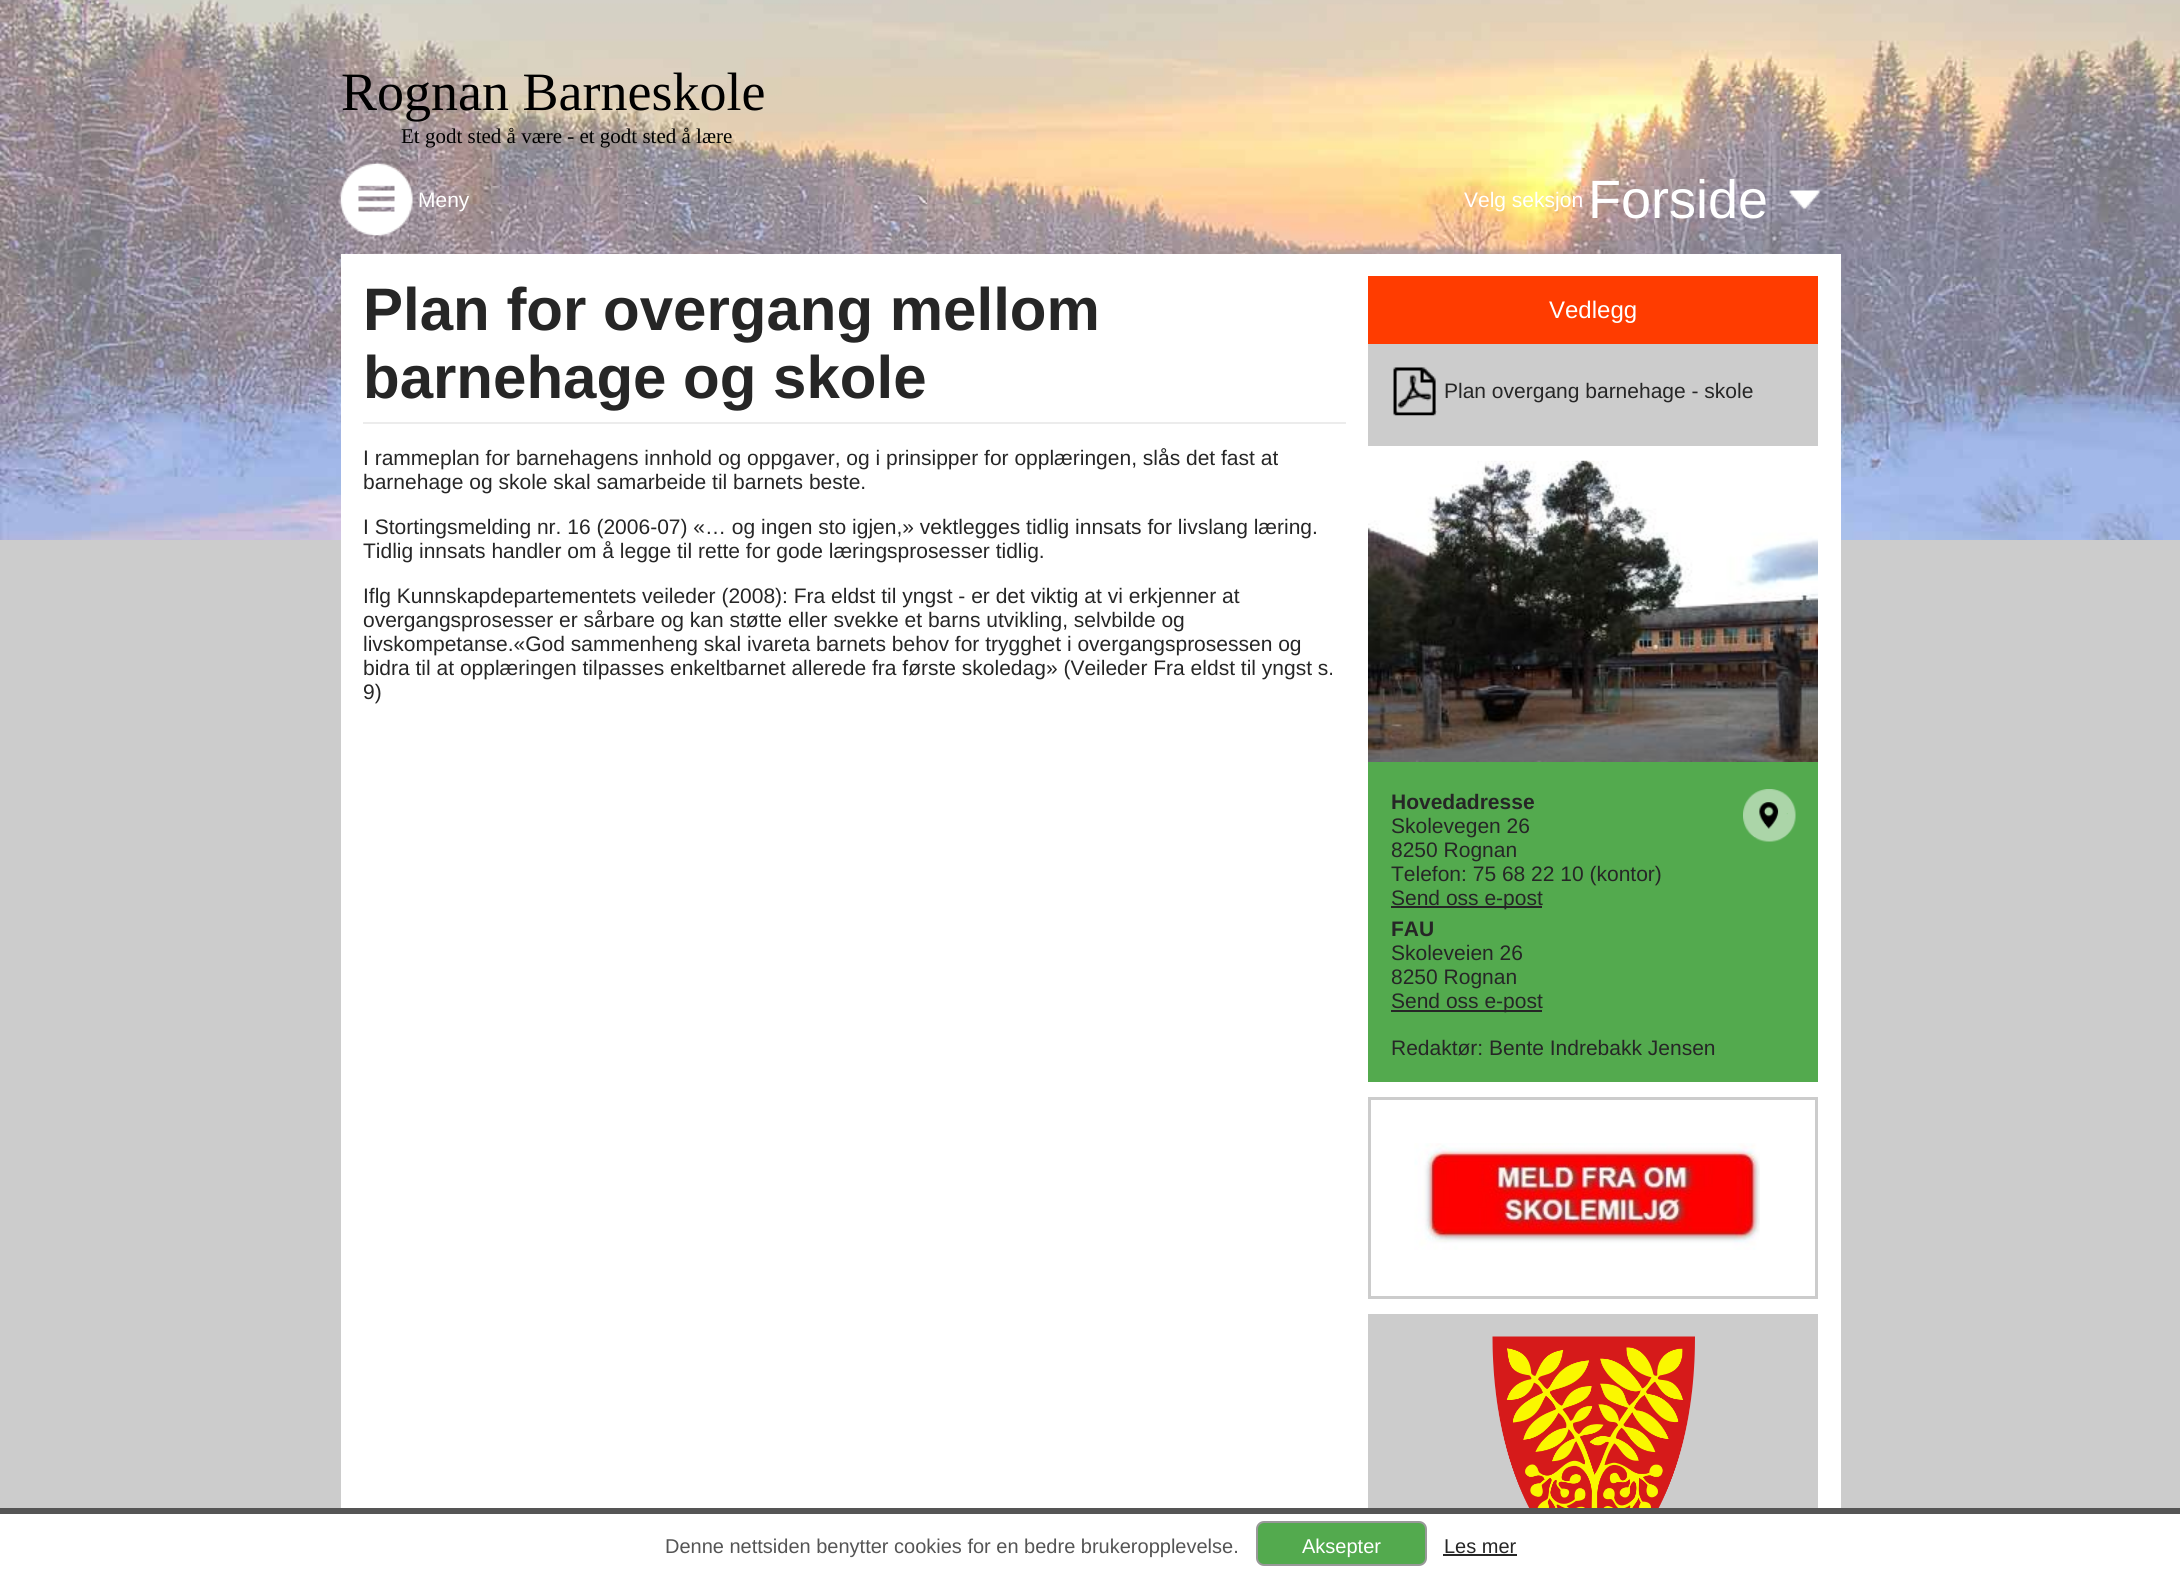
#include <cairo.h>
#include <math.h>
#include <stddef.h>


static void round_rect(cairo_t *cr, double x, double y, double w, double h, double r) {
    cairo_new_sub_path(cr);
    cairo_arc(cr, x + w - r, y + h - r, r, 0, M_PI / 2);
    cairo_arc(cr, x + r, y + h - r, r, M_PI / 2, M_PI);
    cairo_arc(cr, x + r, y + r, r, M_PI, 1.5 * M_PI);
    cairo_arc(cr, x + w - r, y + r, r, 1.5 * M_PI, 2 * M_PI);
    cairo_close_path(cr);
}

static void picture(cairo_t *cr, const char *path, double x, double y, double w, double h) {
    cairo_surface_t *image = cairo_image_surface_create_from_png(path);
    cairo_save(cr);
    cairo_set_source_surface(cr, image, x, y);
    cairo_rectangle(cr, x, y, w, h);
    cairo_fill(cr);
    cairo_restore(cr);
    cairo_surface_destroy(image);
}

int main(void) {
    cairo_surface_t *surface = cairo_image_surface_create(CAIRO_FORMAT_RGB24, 2180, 1573);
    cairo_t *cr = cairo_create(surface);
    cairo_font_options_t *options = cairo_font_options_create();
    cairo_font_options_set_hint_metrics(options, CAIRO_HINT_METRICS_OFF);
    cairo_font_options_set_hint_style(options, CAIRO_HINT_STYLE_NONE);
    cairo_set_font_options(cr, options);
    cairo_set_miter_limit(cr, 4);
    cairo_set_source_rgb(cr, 0.8, 0.8, 0.8);
    cairo_paint(cr);
    picture(cr, "img1.png", 0, 0, 2180, 540);
    cairo_select_font_face(cr, "Liberation Serif", CAIRO_FONT_SLANT_NORMAL, CAIRO_FONT_WEIGHT_NORMAL);
    cairo_set_font_size(cr, 54);
    cairo_set_source_rgb(cr, 0, 0, 0);
    cairo_move_to(cr, 341, 110);
    cairo_show_text(cr, "Rognan Barneskole");
    cairo_set_font_size(cr, 21);
    cairo_move_to(cr, 401, 143);
    cairo_show_text(cr, "Et godt sted å være - et godt sted å lære");
    picture(cr, "img2.png", 340, 163, 73, 73);
    cairo_select_font_face(cr, "Liberation Sans", CAIRO_FONT_SLANT_NORMAL, CAIRO_FONT_WEIGHT_NORMAL);
    cairo_set_source_rgb(cr, 1, 1, 1);
    cairo_move_to(cr, 418, 207);
    cairo_show_text(cr, "Meny");
    cairo_move_to(cr, 1464, 207);
    cairo_show_text(cr, "Velg seksjon");
    cairo_set_font_size(cr, 54);
    cairo_move_to(cr, 1588, 218);
    cairo_show_text(cr, "Forside");
    picture(cr, "img3.png", 1789, 190, 31, 19);
    cairo_rectangle(cr, 341, 254, 1500, 1254);
    cairo_fill(cr);
    cairo_select_font_face(cr, "Liberation Sans", CAIRO_FONT_SLANT_NORMAL, CAIRO_FONT_WEIGHT_BOLD);
    cairo_set_font_size(cr, 60);
    cairo_set_source_rgb(cr, 0.149, 0.149, 0.149);
    cairo_move_to(cr, 363, 330);
    cairo_show_text(cr, "Plan for overgang mellom");
    cairo_move_to(cr, 363, 398);
    cairo_show_text(cr, "barnehage og skole");
    cairo_set_source_rgb(cr, 0.922, 0.922, 0.922);
    cairo_rectangle(cr, 363, 422, 983, 2);
    cairo_fill(cr);
    cairo_select_font_face(cr, "Liberation Sans", CAIRO_FONT_SLANT_NORMAL, CAIRO_FONT_WEIGHT_NORMAL);
    cairo_set_font_size(cr, 21);
    cairo_set_source_rgb(cr, 0.149, 0.149, 0.149);
    cairo_move_to(cr, 363, 465);
    cairo_show_text(cr, "I rammeplan for barnehagens innhold og oppgaver, og i prinsipper for opplæringen, slås det fast at");
    cairo_move_to(cr, 363, 489);
    cairo_show_text(cr, "barnehage og skole skal samarbeide til barnets beste.");
    cairo_move_to(cr, 363, 534);
    cairo_show_text(cr, "I Stortingsmelding nr. 16 (2006-07) «… og ingen sto igjen,» vektlegges tidlig innsats for livslang læring.");
    cairo_move_to(cr, 363, 558);
    cairo_show_text(cr, "Tidlig innsats handler om å legge til rette for gode læringsprosesser tidlig.");
    cairo_move_to(cr, 363, 603);
    cairo_show_text(cr, "Iflg Kunnskapdepartementets veileder (2008): Fra eldst til yngst - er det viktig at vi erkjenner at");
    cairo_move_to(cr, 363, 627);
    cairo_show_text(cr, "overgangsprosesser er sårbare og kan støtte eller svekke et barns utvikling, selvbilde og");
    cairo_move_to(cr, 363, 651);
    cairo_show_text(cr, "livskompetanse.«God sammenheng skal ivareta barnets behov for trygghet i overgangsprosessen og");
    cairo_move_to(cr, 363, 675);
    cairo_show_text(cr, "bidra til at opplæringen tilpasses enkeltbarnet allerede fra første skoledag» (Veileder Fra eldst til yngst s.");
    cairo_move_to(cr, 363, 699);
    cairo_show_text(cr, "9)");
    cairo_set_source_rgb(cr, 1, 0.235, 0);
    cairo_rectangle(cr, 1368, 276, 450, 68);
    cairo_fill(cr);
    cairo_set_font_size(cr, 24);
    cairo_set_source_rgb(cr, 1, 1, 1);
    cairo_move_to(cr, 1549, 318);
    cairo_show_text(cr, "Vedlegg");
    cairo_set_source_rgb(cr, 0.8, 0.8, 0.8);
    cairo_rectangle(cr, 1368, 344, 450, 102);
    cairo_fill(cr);
    picture(cr, "img4.png", 1393, 367, 44, 49);
    cairo_set_font_size(cr, 21);
    cairo_set_source_rgb(cr, 0.149, 0.149, 0.149);
    cairo_move_to(cr, 1444, 398);
    cairo_show_text(cr, "Plan overgang barnehage - skole");
    cairo_set_source_rgb(cr, 0.325, 0.667, 0.306);
    cairo_rectangle(cr, 1368, 762, 450, 320);
    cairo_fill(cr);
    picture(cr, "img5.png", 1368, 460, 450, 302);
    cairo_select_font_face(cr, "Liberation Sans", CAIRO_FONT_SLANT_NORMAL, CAIRO_FONT_WEIGHT_BOLD);
    cairo_set_source_rgb(cr, 0.149, 0.149, 0.149);
    cairo_move_to(cr, 1391, 809);
    cairo_show_text(cr, "Hovedadresse");
    picture(cr, "img6.png", 1743, 789, 53, 53);
    cairo_select_font_face(cr, "Liberation Sans", CAIRO_FONT_SLANT_NORMAL, CAIRO_FONT_WEIGHT_NORMAL);
    cairo_move_to(cr, 1391, 833);
    cairo_show_text(cr, "Skolevegen 26");
    cairo_move_to(cr, 1391, 857);
    cairo_show_text(cr, "8250 Rognan");
    cairo_move_to(cr, 1391, 881);
    cairo_show_text(cr, "Telefon: 75 68 22 10 (kontor)");
    cairo_rectangle(cr, 1391, 906, 151, 2);
    cairo_fill(cr);
    cairo_move_to(cr, 1391, 905);
    cairo_show_text(cr, "Send oss e-post");
    cairo_select_font_face(cr, "Liberation Sans", CAIRO_FONT_SLANT_NORMAL, CAIRO_FONT_WEIGHT_BOLD);
    cairo_move_to(cr, 1391, 936);
    cairo_show_text(cr, "FAU");
    cairo_select_font_face(cr, "Liberation Sans", CAIRO_FONT_SLANT_NORMAL, CAIRO_FONT_WEIGHT_NORMAL);
    cairo_move_to(cr, 1391, 960);
    cairo_show_text(cr, "Skoleveien 26");
    cairo_move_to(cr, 1391, 984);
    cairo_show_text(cr, "8250 Rognan");
    cairo_rectangle(cr, 1391, 1010, 151, 2);
    cairo_fill(cr);
    cairo_move_to(cr, 1391, 1008);
    cairo_show_text(cr, "Send oss e-post");
    cairo_move_to(cr, 1391, 1055);
    cairo_show_text(cr, "Redaktør: Bente Indrebakk Jensen");
    cairo_rectangle(cr, 1369.5, 1098.5, 447, 199);
    cairo_set_source_rgb(cr, 0.8, 0.8, 0.8);
    cairo_set_line_width(cr, 3);
    cairo_stroke(cr);
    picture(cr, "img7.png", 1414, 1143, 346, 107);
    cairo_rectangle(cr, 1368, 1314, 450, 194);
    cairo_fill(cr);
    picture(cr, "img8.png", 1492, 1336, 203, 172);
    cairo_set_source_rgb(cr, 1, 1, 1);
    cairo_rectangle(cr, 0, 1514, 2180, 59);
    cairo_fill(cr);
    cairo_set_source_rgb(cr, 0.333, 0.333, 0.333);
    cairo_rectangle(cr, 0, 1508, 2180, 6);
    cairo_fill(cr);
    cairo_set_font_size(cr, 20);
    cairo_move_to(cr, 665, 1553);
    cairo_show_text(cr, "Denne nettsiden benytter cookies for en bedre brukeropplevelse.");
    cairo_set_source_rgb(cr, 0.325, 0.667, 0.306);
    round_rect(cr, 1257, 1522, 169, 43, 7);
    cairo_fill_preserve(cr);
    cairo_set_source_rgb(cr, 0.6, 0.6, 0.6);
    cairo_set_line_width(cr, 2);
    cairo_stroke(cr);
    cairo_set_source_rgb(cr, 1, 1, 1);
    cairo_move_to(cr, 1302, 1553);
    cairo_show_text(cr, "Aksepter");
    cairo_set_source_rgb(cr, 0.149, 0.149, 0.149);
    cairo_move_to(cr, 1444, 1553);
    cairo_show_text(cr, "Les mer");
    cairo_rectangle(cr, 1443, 1554, 74, 2);
    cairo_fill(cr);
    cairo_surface_write_to_png(surface, "page.png");
    cairo_font_options_destroy(options);
    cairo_destroy(cr);
    cairo_surface_destroy(surface);
    return 0;
}
